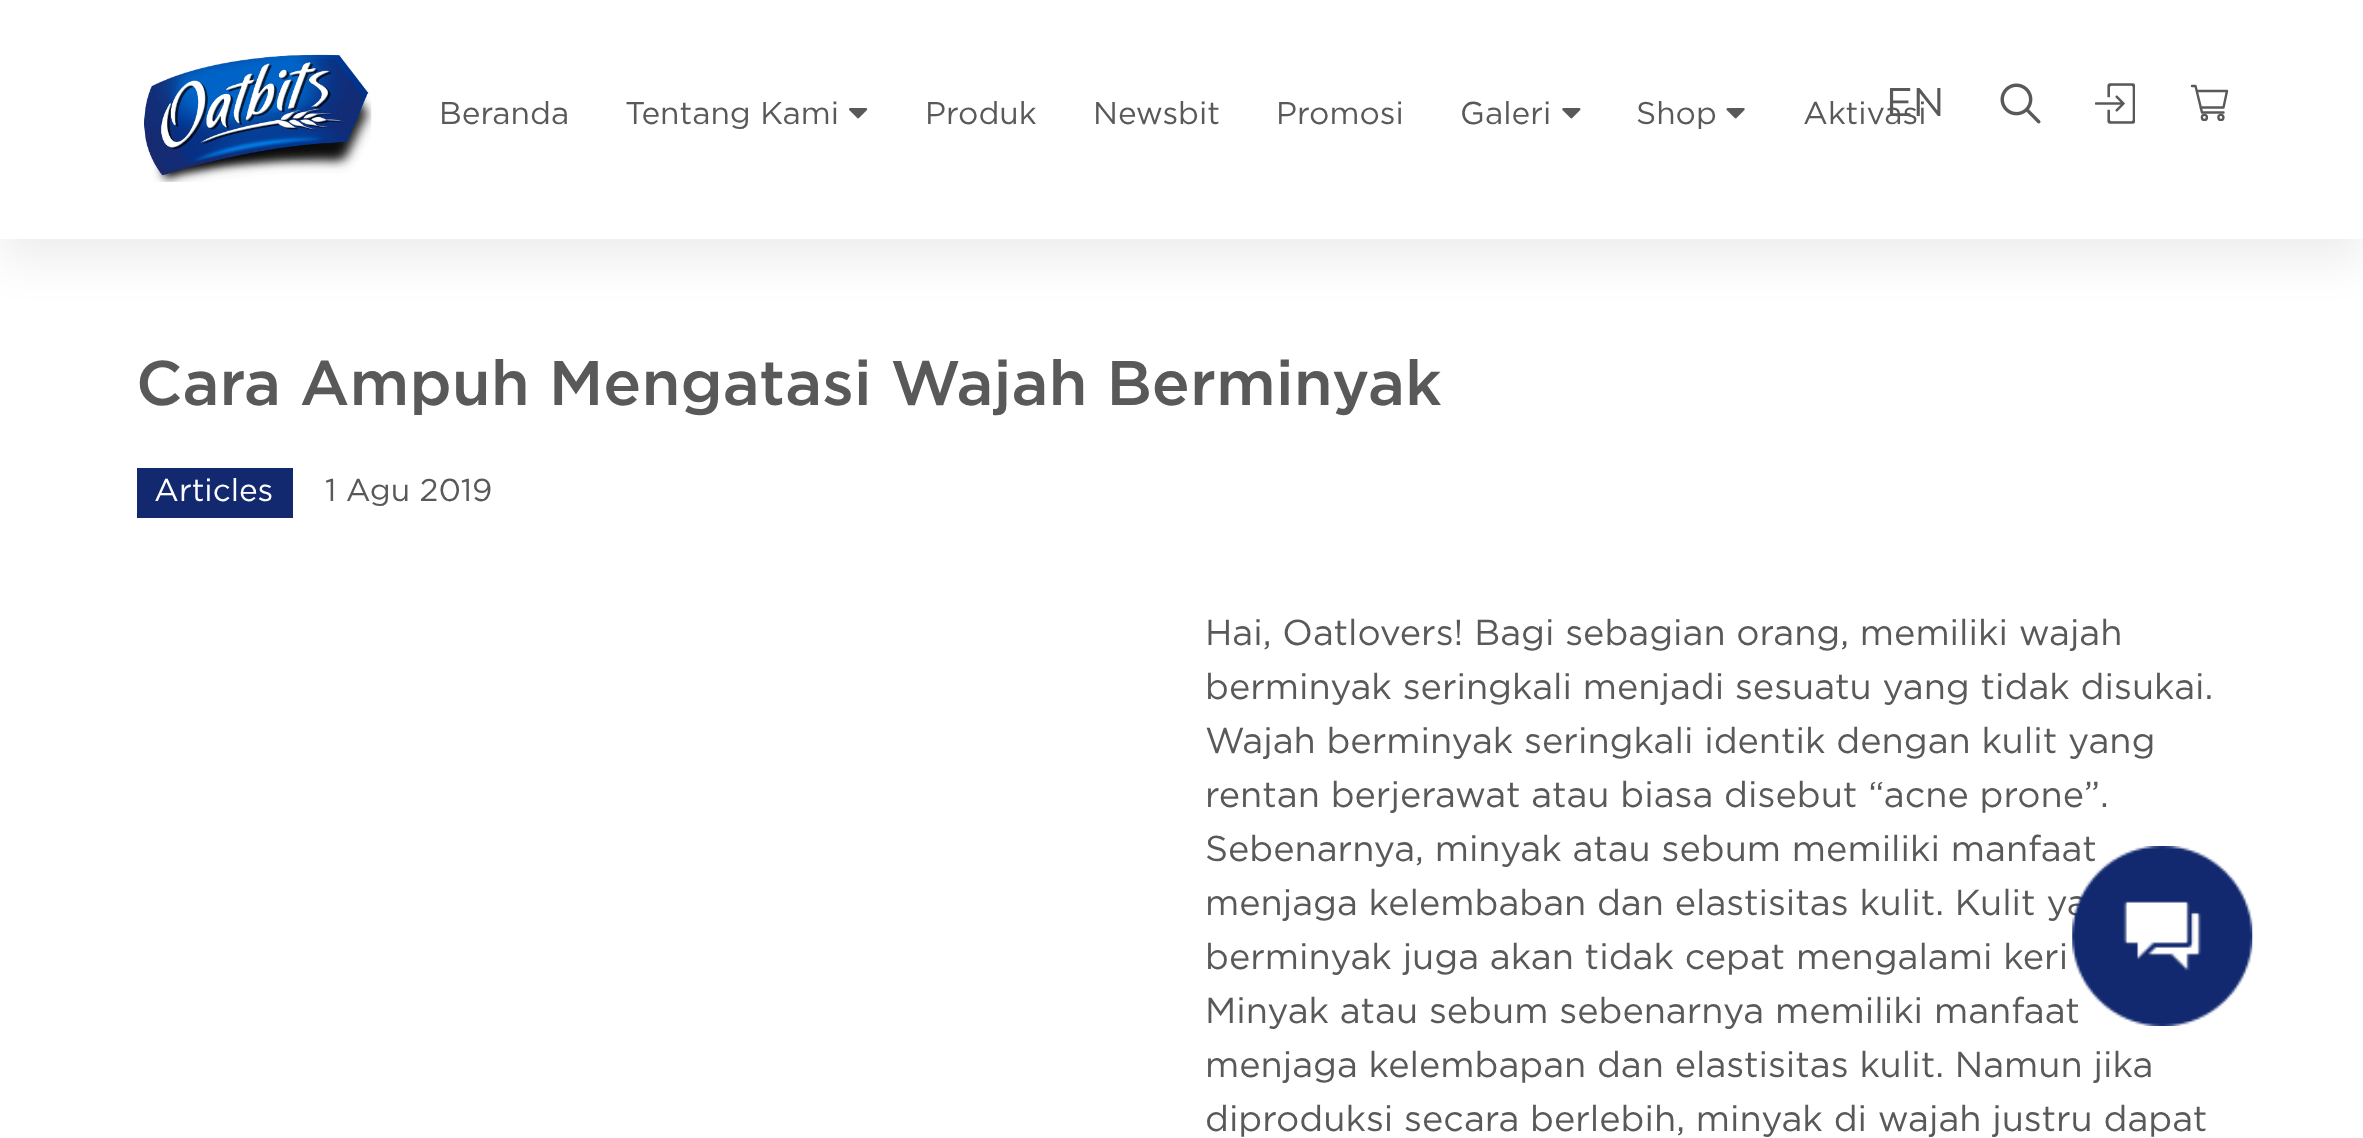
async function draw(canvas) {
  canvas.width = 2363;
  canvas.height = 1138;
  const ctx = canvas.getContext('2d');
  ctx.miterLimit = 4;
  ctx.fontKerning = 'normal';
  function label(s, x, y, font, color) {
    ctx.font = font;
    ctx.fillStyle = color;
    ctx.fillText(s, x, y);
  }
  function rect(x, y, w, h, color) {
    ctx.fillStyle = color;
    ctx.fillRect(x, y, w, h);
  }
  async function image(src, x, y, w, h) {
    const img = new Image();
    img.src = src;
    await img.decode();
    ctx.drawImage(img, x, y, w, h);
  }
  let path;

  rect(0, 0, 2363, 1138, '#fff');
  ctx.fillStyle = '#00000012';
  ctx.filter = 'blur(22.5px)';
  ctx.beginPath();
  ctx.rect(0, 23, 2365, 238);
  ctx.fill();
  ctx.filter = 'none';
  rect(0, 0, 2363, 239, '#fff');
  await image('assets/img1.png', 144, 54, 228, 128);
  label('Aktivasi', 1803, 124, '31.5px Gotham', '#595959');
  label('EN', 1886, 116, '40px Gotham', '#595959');
  await image('assets/img2.png', 2000, 83, 41, 41);
  await image('assets/img3.png', 2095, 83, 40, 41);
  path = new Path2D('M2197 91H2227L2223.5 107.5H2200.5M2223.5 112.5H2202L2195.5 86H2192');
  ctx.strokeStyle = '#595959';
  ctx.lineWidth = 2.4;
  ctx.lineCap = 'round';
  ctx.lineJoin = 'round';
  ctx.stroke(path);
  ctx.beginPath();
  ctx.arc(2220.9, 117.4, 2.5, 0, 2 * Math.PI);
  ctx.stroke();
  ctx.beginPath();
  ctx.arc(2204.4, 117.4, 2.5, 0, 2 * Math.PI);
  ctx.stroke();
  label('Beranda', 439, 124, '31.5px Gotham', '#595959');
  label('Tentang Kami', 625, 124, '31.5px Gotham', '#595959');
  await image('assets/img4.png', 849, 108, 19, 11);
  label('Produk', 925, 124, '31.5px Gotham', '#595959');
  label('Newsbit', 1093, 124, '31.5px Gotham', '#595959');
  label('Promosi', 1276, 124, '31.5px Gotham', '#595959');
  label('Galeri', 1460, 124, '31.5px Gotham', '#595959');
  await image('assets/img5.png', 1562, 108, 19, 11);
  label('Shop', 1636, 124, '31.5px Gotham', '#595959');
  await image('assets/img6.png', 1726, 108, 19, 11);
  label('Cara Ampuh Mengatasi Wajah Berminyak', 136, 405, '500 63px Gotham', '#595959');
  rect(137, 468, 156, 50, '#13296f');
  label('Articles', 154, 501, '31.5px Gotham', '#fff');
  label('1 Agu 2019', 325, 501, '31.5px Gotham', '#595959');
  label('Hai, Oatlovers! Bagi sebagian orang, memiliki wajah', 1205, 645, '36px Gotham', '#595959');
  label('berminyak seringkali menjadi sesuatu yang tidak disukai.', 1205, 699, '36px Gotham', '#595959');
  label('Wajah berminyak seringkali identik dengan kulit yang', 1205, 753, '36px Gotham', '#595959');
  label('rentan berjerawat atau biasa disebut “acne prone”.', 1205, 807, '36px Gotham', '#595959');
  label('Sebenarnya, minyak atau sebum memiliki manfaat', 1205, 861, '36px Gotham', '#595959');
  label('menjaga kelembaban dan elastisitas kulit. Kulit ya', 1205, 915, '36px Gotham', '#595959');
  label('berminyak juga akan tidak cepat mengalami keri', 1205, 969, '36px Gotham', '#595959');
  label('Minyak atau sebum sebenarnya memiliki manfaat', 1205, 1023, '36px Gotham', '#595959');
  label('menjaga kelembapan dan elastisitas kulit. Namun jika', 1205, 1077, '36px Gotham', '#595959');
  label('diproduksi secara berlebih, minyak di wajah justru dapat', 1205, 1131, '36px Gotham', '#595959');
  await image('assets/img7.png', 2072, 846, 181, 180);
}

draw(document.querySelector('canvas'));
